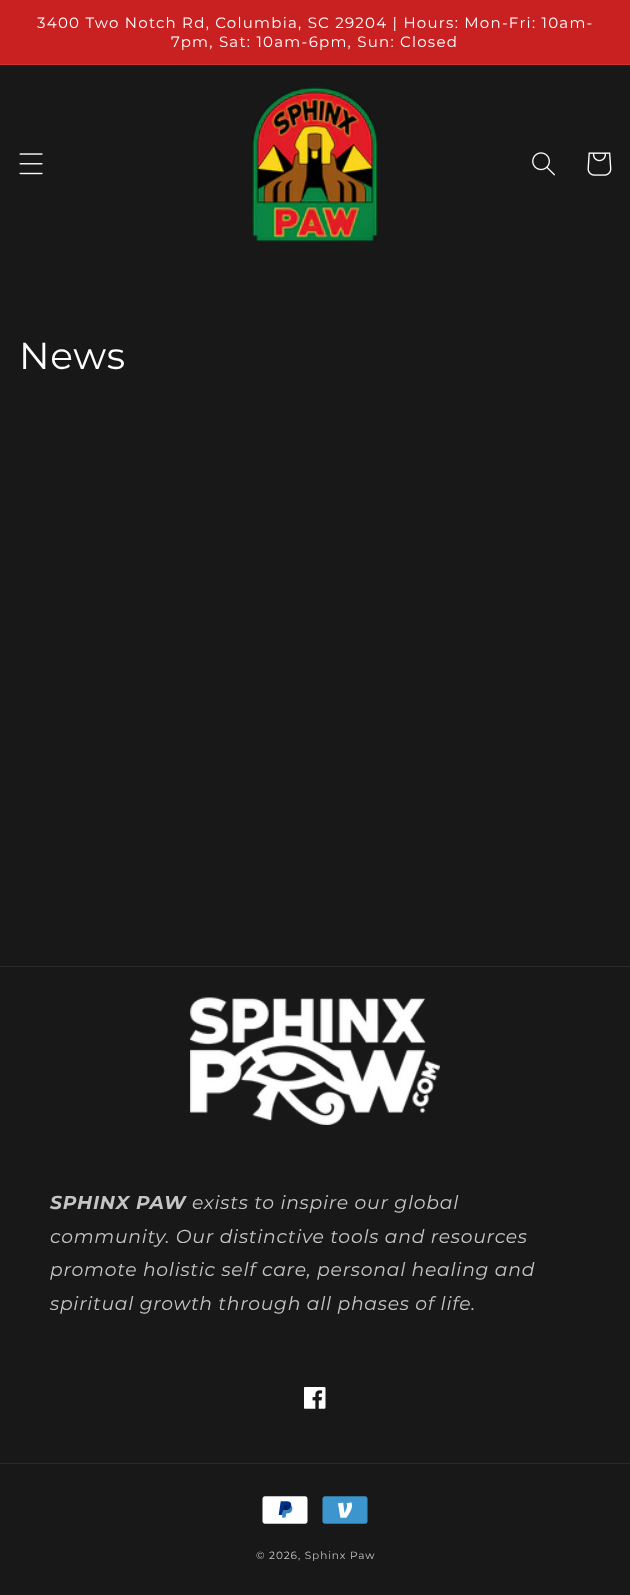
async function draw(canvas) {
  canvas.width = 630;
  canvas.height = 1595;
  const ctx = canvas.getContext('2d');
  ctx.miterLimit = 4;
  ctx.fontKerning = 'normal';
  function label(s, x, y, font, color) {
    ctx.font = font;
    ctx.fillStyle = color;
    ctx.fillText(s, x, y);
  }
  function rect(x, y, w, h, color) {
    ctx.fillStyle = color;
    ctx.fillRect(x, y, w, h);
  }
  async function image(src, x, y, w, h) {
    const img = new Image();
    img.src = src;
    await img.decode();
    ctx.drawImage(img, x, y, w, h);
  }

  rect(0, 0, 630, 1595, '#181818');
  rect(0, 0, 630, 64, '#c92121');
  rect(0, 64, 630, 1, '#cd3333');
  ctx.letterSpacing = '1.25px';
  label('3400 Two Notch Rd, Columbia, SC 29204 | Hours: Mon-Fri: 10am-', 37, 28, '15px Montserrat', '#fff');
  label('7pm, Sat: 10am-6pm, Sun: Closed', 171, 47, '15px Montserrat', '#fff');
  await image('assets/img1.png', 19, 153, 24, 22);
  await image('assets/img2.png', 252, 87, 126, 155);
  await image('assets/img3.png', 532, 152, 23, 24);
  await image('assets/img4.png', 587, 152, 25, 24);
  ctx.letterSpacing = '0.75px';
  label('News', 19, 369, '37.5px Montserrat', '#fff');
  rect(0, 966, 630, 1, '#2a2a2a');
  await image('assets/img5.png', 190, 997, 250, 128);
  label('SPHINX PAW', 50, 1209, 'italic bold 18.75px Montserrat', '#c5c5c5');
  label('exists to inspire our global', 192, 1209, 'italic 18.75px Montserrat', '#c5c5c5');
  label('community. Our distinctive tools and resources', 50, 1243, 'italic 18.75px Montserrat', '#c5c5c5');
  label('promote holistic self care, personal healing and', 50, 1276, 'italic 18.75px Montserrat', '#c5c5c5');
  label('spiritual growth through all phases of life.', 50, 1310, 'italic 18.75px Montserrat', '#c5c5c5');
  await image('assets/img6.png', 304, 1387, 22, 22);
  rect(0, 1463, 630, 1, '#2a2a2a');
  await image('assets/img7.png', 262, 1496, 46, 28);
  await image('assets/img8.png', 322, 1496, 46, 28);
  ctx.letterSpacing = '0.9px';
  label('© 2026, Sphinx Paw', 256, 1559, '10.5px Montserrat', '#c5c5c5');
}

draw(document.querySelector('canvas'));
